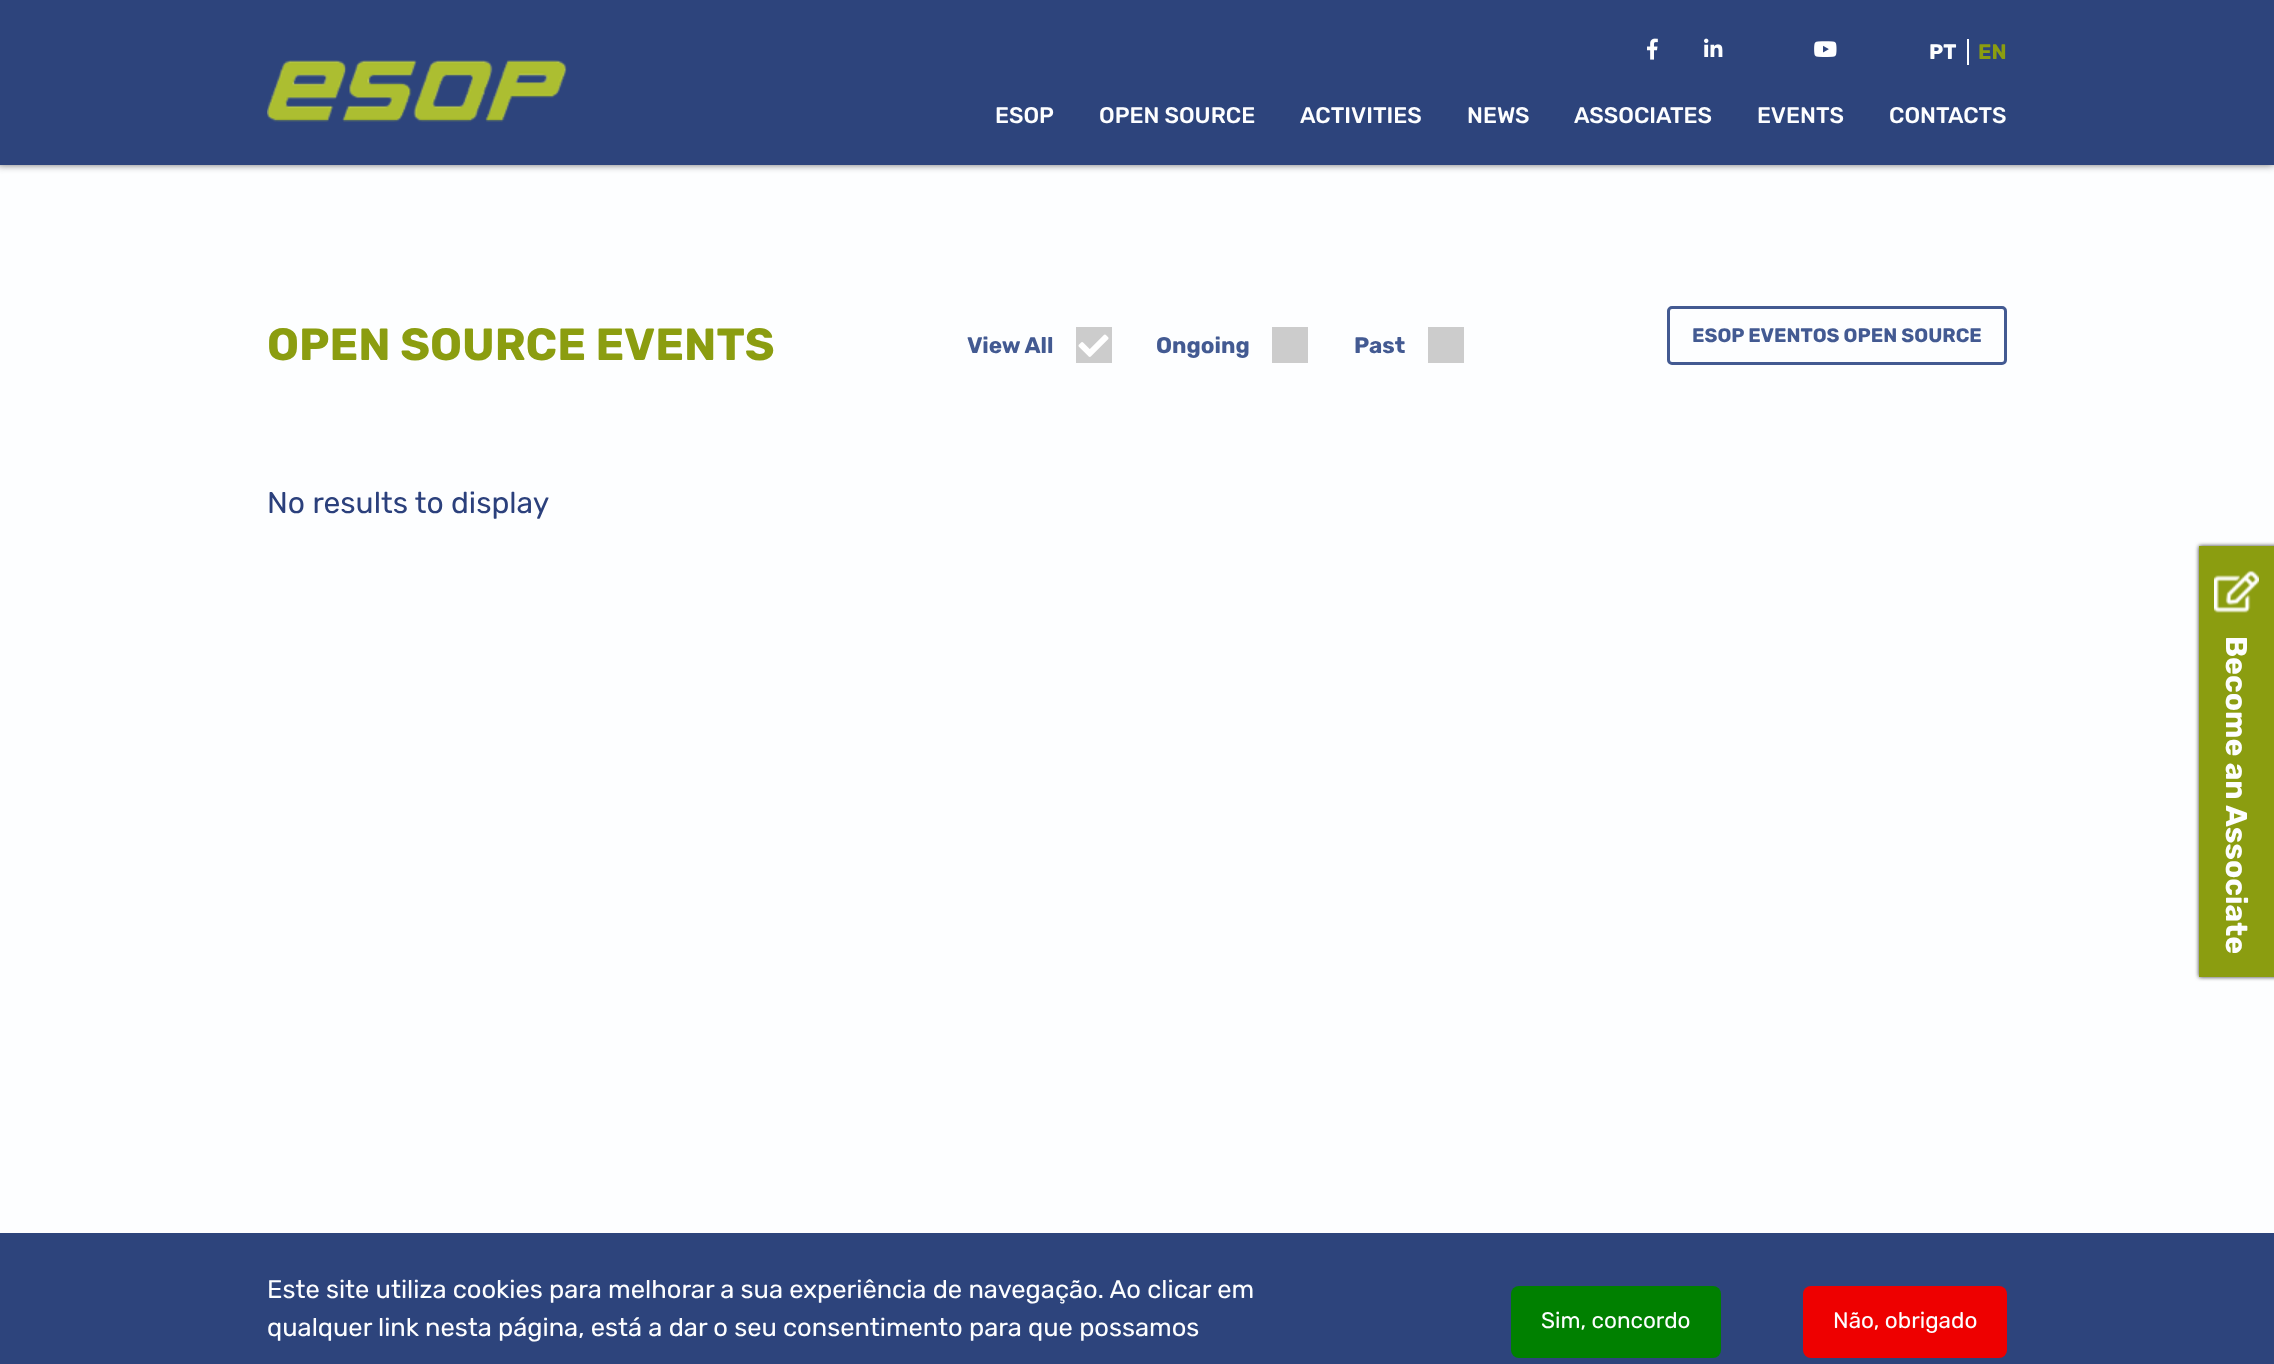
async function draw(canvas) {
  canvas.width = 2274;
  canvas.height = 1364;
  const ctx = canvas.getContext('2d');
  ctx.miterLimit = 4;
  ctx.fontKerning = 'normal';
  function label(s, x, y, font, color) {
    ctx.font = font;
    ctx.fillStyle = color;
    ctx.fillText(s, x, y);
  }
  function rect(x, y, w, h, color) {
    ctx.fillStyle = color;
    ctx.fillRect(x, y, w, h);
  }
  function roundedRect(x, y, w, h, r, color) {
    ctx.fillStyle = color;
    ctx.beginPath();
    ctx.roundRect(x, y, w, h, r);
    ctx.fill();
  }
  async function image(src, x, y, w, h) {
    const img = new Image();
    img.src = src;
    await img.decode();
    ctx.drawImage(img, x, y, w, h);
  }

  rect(0, 0, 2274, 1364, '#fdfeff');
  ctx.fillStyle = '#4d4f4f';
  ctx.filter = 'blur(4px)';
  ctx.beginPath();
  ctx.rect(-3, -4, 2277, 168);
  ctx.fill();
  ctx.filter = 'none';
  rect(0, 0, 2274, 165, '#2d447c');
  await image('assets/img1.png', 267, 60, 300, 62);
  await image('assets/img2.png', 1647, 38, 11, 22);
  await image('assets/img3.png', 1704, 38, 19, 19);
  await image('assets/img4.png', 1814, 41, 23, 16);
  label('PT', 1929, 59, 'bold 21px Rubik', '#fdfeff');
  label('EN', 1978, 59, 'bold 21px Rubik', '#8b9d10');
  rect(1967, 39, 2, 26, '#fdfeff');
  label('ESOP', 995, 123, '500 22.5px Rubik', '#fdfeff');
  label('OPEN SOURCE', 1099, 123, '500 22.5px Rubik', '#fdfeff');
  label('ACTIVITIES', 1300, 123, '500 22.5px Rubik', '#fdfeff');
  label('NEWS', 1467, 123, '500 22.5px Rubik', '#fdfeff');
  label('ASSOCIATES', 1574, 123, '500 22.5px Rubik', '#fdfeff');
  label('EVENTS', 1757, 123, '500 22.5px Rubik', '#fdfeff');
  label('CONTACTS', 1889, 123, '500 22.5px Rubik', '#fdfeff');
  label('OPEN SOURCE EVENTS', 267, 360, 'bold 45px Rubik', '#8b9d10');
  label('View All', 967, 353, 'bold 22.5px Rubik', '#435a92');
  rect(1076, 327, 36, 36, '#ccc');
  await image('assets/img5.png', 1078, 334, 31, 23);
  label('Ongoing', 1156, 353, 'bold 22.5px Rubik', '#435a92');
  rect(1272, 327, 36, 36, '#ccc');
  label('Past', 1354, 353, 'bold 22.5px Rubik', '#435a92');
  rect(1428, 327, 36, 36, '#ccc');
  ctx.beginPath();
  ctx.roundRect(1668.5, 307.5, 337, 56, 3.5);
  ctx.strokeStyle = '#435a92';
  ctx.lineWidth = 3;
  ctx.stroke();
  label('ESOP EVENTOS OPEN SOURCE', 1692, 342, 'bold 19.5px Rubik', '#435a92');
  label('No results to display', 267, 513, '30px Rubik', '#2b407c');
  ctx.fillStyle = '#333';
  ctx.filter = 'blur(2px)';
  ctx.beginPath();
  ctx.rect(2199, 546, 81, 431);
  ctx.fill();
  ctx.filter = 'none';
  rect(2199, 546, 75, 431, '#8b9d10');
  await image('assets/img6.png', 2214, 570, 45, 43);
  ctx.font = 'bold 30px Rubik';
  ctx.fillStyle = '#fdfeff';
  ctx.save();
  ctx.translate(2226, 636);
  ctx.rotate(90 * Math.PI / 180);
  ctx.fillText('Become an Associate', 0, 0);
  ctx.restore();
  rect(0, 1233, 2274, 131, '#2d447c');
  label('Este site utiliza cookies para melhorar a sua experiência de navegação. Ao clicar em', 267, 1298, '25.5px Rubik', '#fdfeff');
  label('qualquer link nesta página, está a dar o seu consentimento para que possamos', 267, 1336, '25.5px Rubik', '#fdfeff');
  roundedRect(1511, 1286, 210, 72, 8, '#008000');
  label('Sim, concordo', 1541, 1328, '22.5px Rubik', '#fdfeff');
  roundedRect(1803, 1286, 204, 72, 8, '#e00');
  label('Não, obrigado', 1833, 1328, '22.5px Rubik', '#fdfeff');
}

draw(document.querySelector('canvas'));
